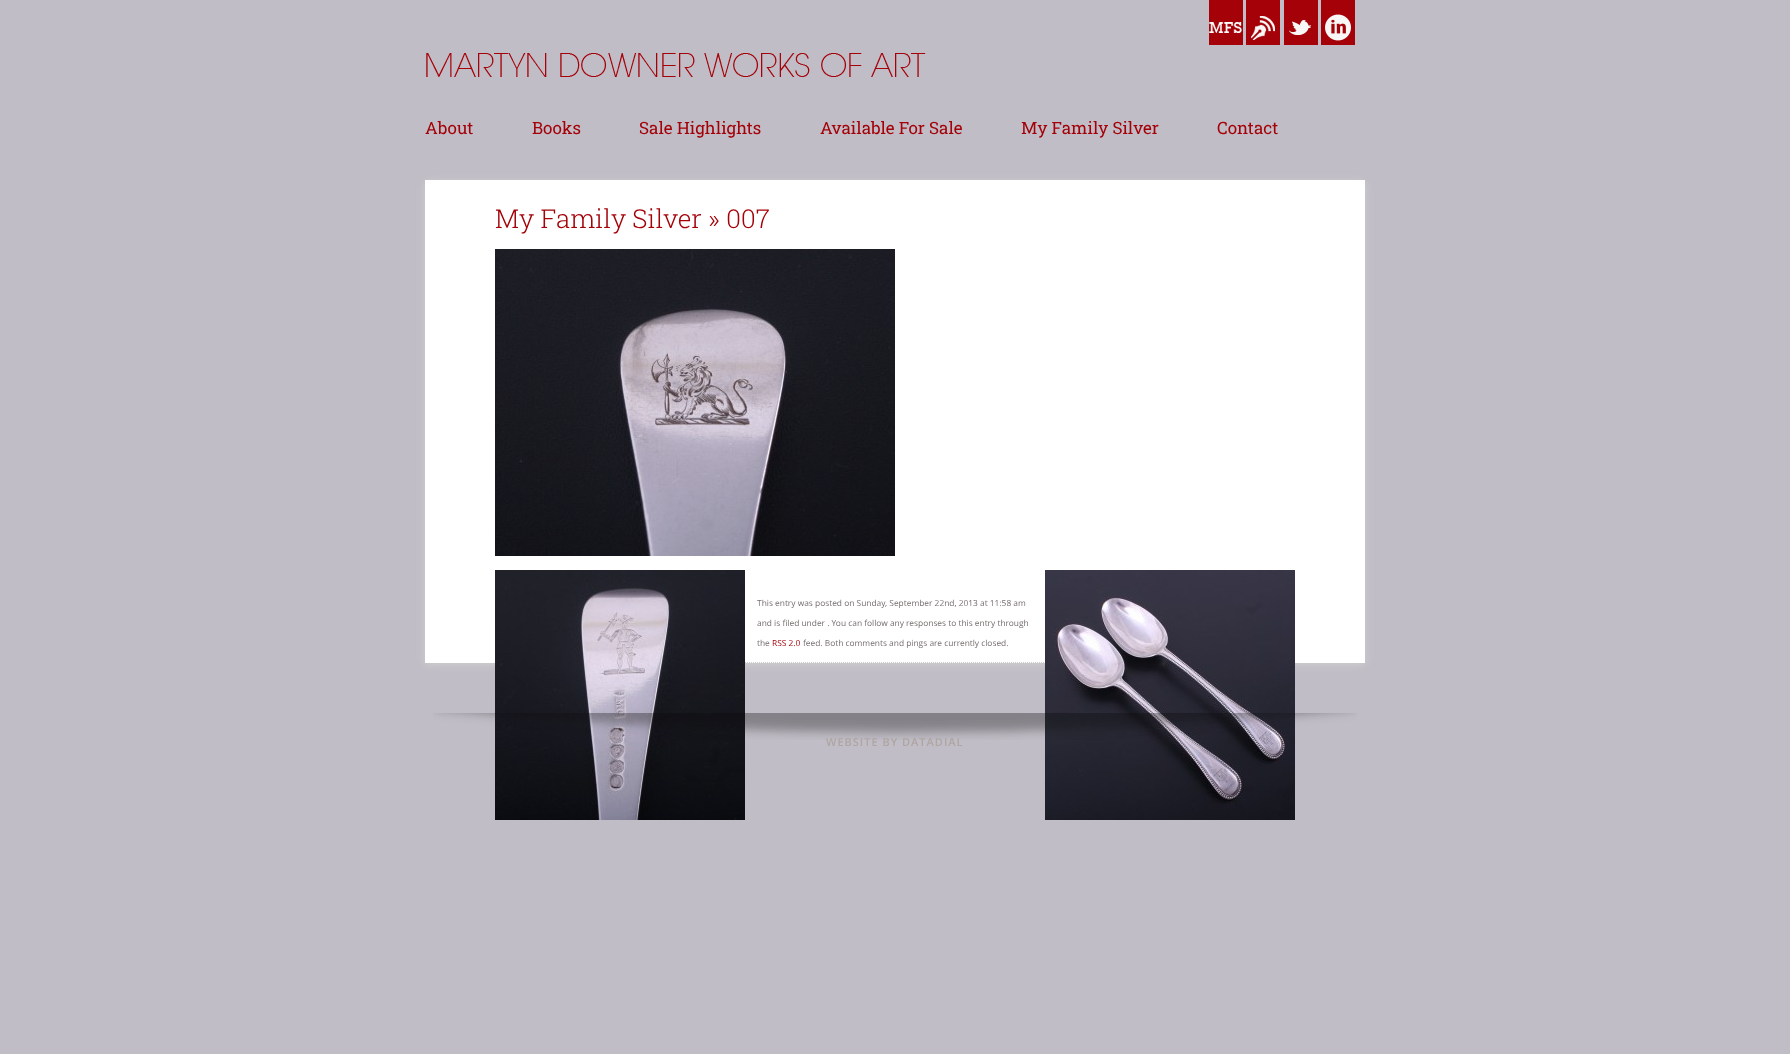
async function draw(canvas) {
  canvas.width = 1790;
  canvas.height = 1054;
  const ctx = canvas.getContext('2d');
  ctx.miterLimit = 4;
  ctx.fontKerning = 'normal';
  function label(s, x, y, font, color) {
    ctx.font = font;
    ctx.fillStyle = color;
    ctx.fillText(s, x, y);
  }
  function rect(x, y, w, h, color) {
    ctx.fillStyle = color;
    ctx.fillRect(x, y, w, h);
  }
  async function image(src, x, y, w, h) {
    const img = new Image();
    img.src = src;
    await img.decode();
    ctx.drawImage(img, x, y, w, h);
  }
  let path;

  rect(0, 0, 1790, 1054, '#c1bdc6');
  rect(1209, 0, 34, 45, '#a40108');
  await image('assets/img1.png', 1209, 22, 33, 11);
  rect(1246, 0, 34, 45, '#a40108');
  await image('assets/img2.png', 1251, 16, 24, 24);
  rect(1284, 0, 34, 45, '#a40108');
  await image('assets/img3.png', 1289, 20, 22, 15);
  rect(1321, 0, 34, 45, '#a40108');
  await image('assets/img4.png', 1325, 14, 26, 27);
  await image('assets/img5.png', 426, 53, 500, 24);
  label('About', 425, 134, '17px Roboto Slab', '#a40108');
  label('Books', 532, 134, '17px Roboto Slab', '#a40108');
  label('Sale Highlights', 639, 134, '17px Roboto Slab', '#a40108');
  label('Available For Sale', 820, 134, '17px Roboto Slab', '#a40108');
  label('My Family Silver', 1021, 134, '17px Roboto Slab', '#a40108');
  label('Contact', 1217, 134, '17px Roboto Slab', '#a40108');
  ctx.fillStyle = '#cecece';
  ctx.filter = 'blur(4px)';
  ctx.beginPath();
  ctx.rect(425, 182, 940, 483);
  ctx.fill();
  ctx.filter = 'none';
  rect(425, 180, 940, 483, '#fff');
  path = new Path2D('M495 662.5H1295');
  ctx.strokeStyle = '#ccc';
  ctx.setLineDash([1, 1]);
  ctx.stroke(path);
  label('My Family Silver » 007', 495, 228, '300 26px Roboto Slab', '#a40108');
  await image('assets/img6.png', 495, 249, 400, 307);
  await image('assets/img7.png', 495, 570, 250, 250);
  await image('assets/img8.png', 1045, 570, 250, 250);
  label('This entry was posted on Sunday, September 22nd, 2013 at 11:58 am', 757, 606, '8.4px Open Sans', '#766f6d');
  label('and is filed under . You can follow any responses to this entry through', 757, 626, '8.4px Open Sans', '#766f6d');
  label('the', 757, 646, '8.4px Open Sans', '#766f6d');
  label('RSS 2.0', 772, 646, '8.4px Open Sans', '#a40108');
  label('feed. Both comments and pings are currently closed.', 803, 646, '8.4px Open Sans', '#766f6d');
  await image('assets/img9.png', 433, 713, 924, 27);
  ctx.letterSpacing = '1px';
  label('WEBSITE BY DATADIAL', 826, 746, '600 11px Open Sans', '#afa5a2');
}

draw(document.querySelector('canvas'));
